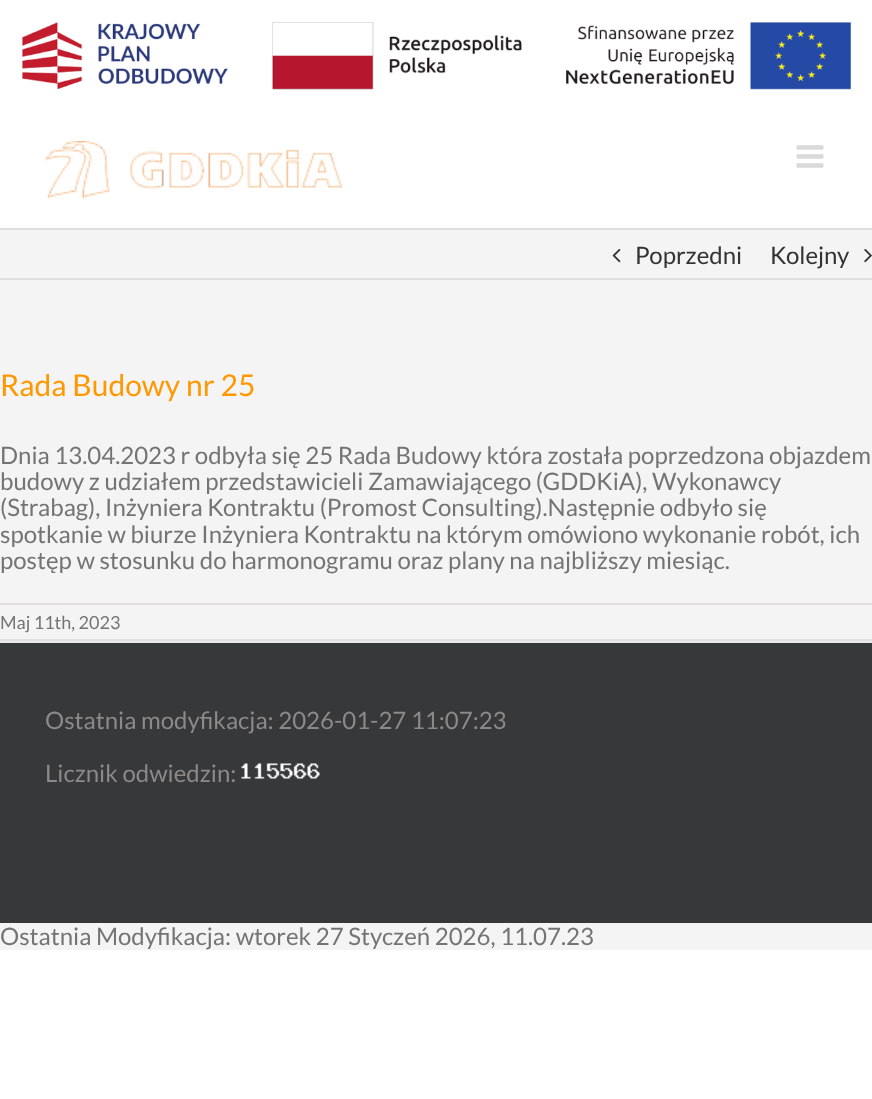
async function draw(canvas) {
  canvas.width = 872;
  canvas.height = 1099;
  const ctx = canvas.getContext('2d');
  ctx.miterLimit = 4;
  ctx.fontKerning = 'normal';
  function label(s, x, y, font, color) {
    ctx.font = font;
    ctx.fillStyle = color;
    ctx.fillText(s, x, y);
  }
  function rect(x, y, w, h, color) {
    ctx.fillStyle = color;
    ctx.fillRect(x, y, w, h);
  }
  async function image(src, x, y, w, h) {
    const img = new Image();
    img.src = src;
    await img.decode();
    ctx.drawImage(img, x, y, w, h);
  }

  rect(0, 0, 872, 1099, '#fff');
  await image('assets/img1.png', 22, 22, 830, 68);
  rect(0, 230, 872, 720, '#f4f4f4');
  await image('assets/img2.png', 45, 141, 297, 58);
  await image('assets/img3.png', 796, 145, 28, 23);
  rect(0, 228, 872, 2, '#e0dede');
  rect(0, 278, 872, 2, '#e0dede');
  await image('assets/img4.png', 612, 248, 9, 15);
  label('Poprzedni', 635, 264, '24px Lato', '#333');
  label('Kolejny', 770, 264, '24px Lato', '#333');
  await image('assets/img5.png', 864, 248, 8, 15);
  label('Rada Budowy nr 25', 0, 396, '30px Lato', '#ff9800');
  label('Dnia 13.04.2023 r odbyła się 25 Rada Budowy która została poprzedzona objazdem', 0, 464, '24px Lato', '#747474');
  label('budowy z udziałem przedstawicieli Zamawiającego (GDDKiA), Wykonawcy', 0, 490, '24px Lato', '#747474');
  label('(Strabag), Inżyniera Kontraktu (Promost Consulting).Następnie odbyło się', 0, 516, '24px Lato', '#747474');
  label('spotkanie w biurze Inżyniera Kontraktu na którym omówiono wykonanie robót, ich', 0, 543, '24px Lato', '#747474');
  label('postęp w stosunku do harmonogramu oraz plany na najbliższy miesiąc.', 0, 569, '24px Lato', '#747474');
  rect(0, 603, 872, 2, '#e0dede');
  rect(0, 639, 872, 2, '#e0dede');
  label('Maj 11th, 2023', 0, 629, '18px Lato', '#747474');
  rect(0, 643, 872, 280, '#363839');
  rect(0, 641, 872, 2, '#e9eaee');
  label('Ostatnia modyfikacja: 2026-01-27 11:07:23', 45, 729, '24px Lato', '#8c8989');
  label('Licznik odwiedzin:', 45, 782, '24px Lato', '#8c8989');
  await image('assets/img6.png', 241, 763, 79, 16);
  label('Ostatnia Modyfikacja: wtorek 27 Styczeń 2026, 11.07.23', 0, 945, '24px Lato', '#747474');
}

draw(document.querySelector('canvas'));
